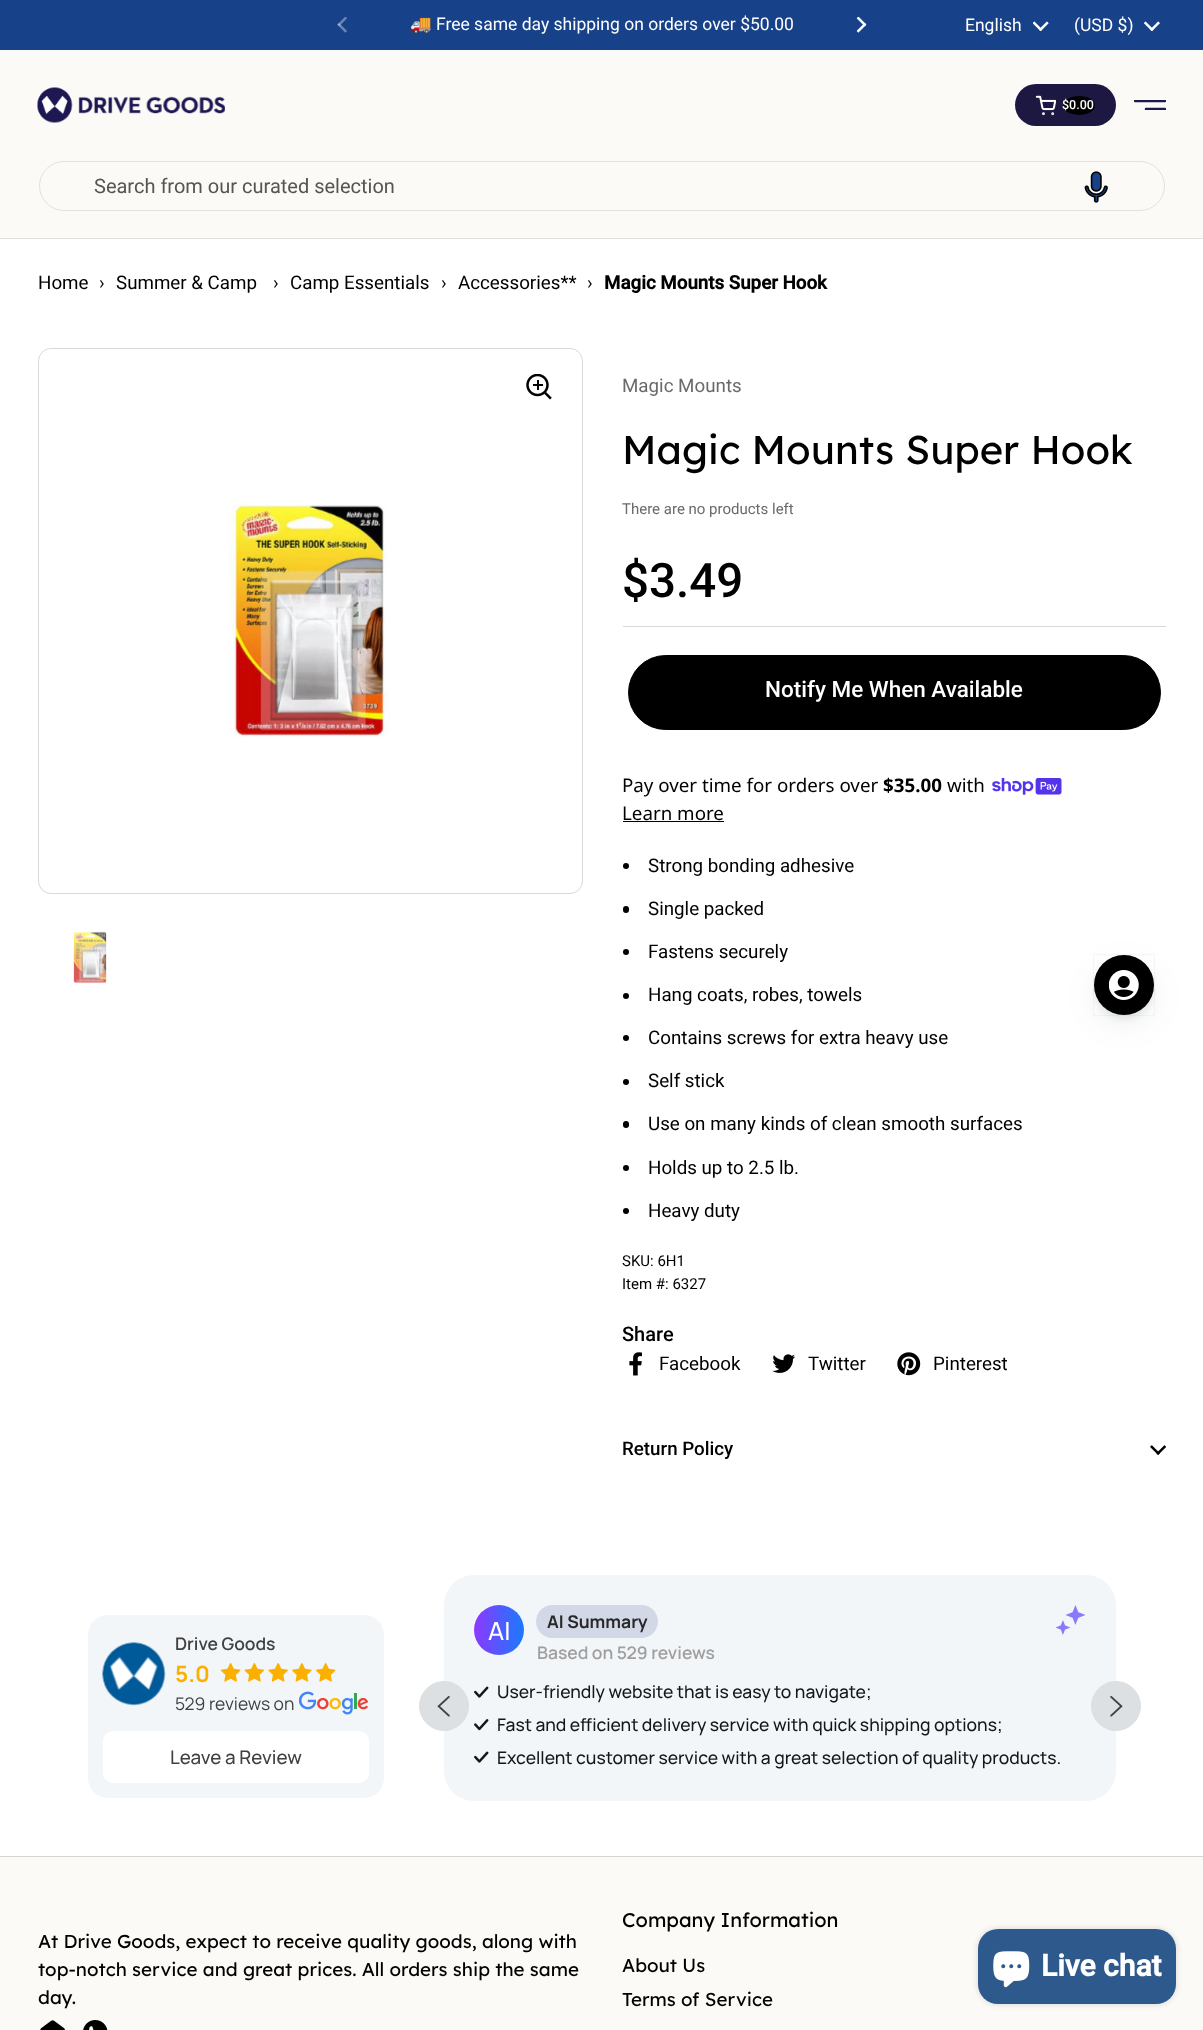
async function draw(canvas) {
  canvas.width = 1203;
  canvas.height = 2030;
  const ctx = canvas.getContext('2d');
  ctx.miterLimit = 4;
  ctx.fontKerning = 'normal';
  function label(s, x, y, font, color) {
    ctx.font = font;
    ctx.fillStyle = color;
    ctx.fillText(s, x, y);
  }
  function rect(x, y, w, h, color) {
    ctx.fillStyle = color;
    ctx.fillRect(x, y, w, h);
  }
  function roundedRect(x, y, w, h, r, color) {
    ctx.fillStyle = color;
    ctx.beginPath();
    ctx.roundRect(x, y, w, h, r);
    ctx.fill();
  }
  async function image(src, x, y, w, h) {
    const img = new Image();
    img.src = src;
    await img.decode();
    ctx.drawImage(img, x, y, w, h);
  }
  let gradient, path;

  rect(0, 0, 1203, 2030, '#fff');
  rect(0, 0, 1203, 50, '#174188');
  await image('assets/img1.png', 337, 17, 10, 16);
  label('🚚', 410, 30, '17.5px Noto Color Emoji', '#fff');
  label('Free same day shipping on orders over $50.00', 436, 30, '17.5px Roboto', '#fff');
  await image('assets/img2.png', 856, 16, 11, 17);
  label('English', 965, 31, '17.5px Roboto', '#fff');
  await image('assets/img3.png', 1033, 21, 16, 10);
  label('(USD $)', 1074, 31, '17.5px Roboto', '#fff');
  await image('assets/img4.png', 1144, 21, 16, 10);
  rect(0, 50, 1203, 188, '#fbfaf6');
  await image('assets/img5.png', 37, 87, 188, 36);
  roundedRect(1015, 84, 101, 42, 21, '#1c1841');
  await image('assets/img6.png', 1035, 95, 21, 21);
  ctx.fillStyle = '#000';
  ctx.beginPath();
  ctx.ellipse(1079, 105.5, 16, 9.5, 0, 0, 2 * Math.PI);
  ctx.fill();
  label('$0.00', 1062, 109, '500 12.5px Roboto', '#fff');
  ctx.save();
  ctx.beginPath();
  ctx.rect(1134, 100, 32, 10);
  ctx.clip();
  path = new Path2D('M1135 101H1165M1146 109H1165');
  ctx.strokeStyle = '#1d1752';
  ctx.lineWidth = 2.5;
  ctx.lineCap = 'round';
  ctx.stroke(path);
  ctx.restore();
  rect(0, 238, 1203, 1, '#e2e1dd');
  ctx.beginPath();
  ctx.roundRect(39.5, 161.5, 1125, 49, 24.5);
  ctx.strokeStyle = '#e2e1dd';
  ctx.stroke();
  label('Search from our curated selection', 94, 193, '20px Roboto', '#555554');
  await image('assets/img7.png', 1084, 171, 24, 32);
  label('Home', 38, 289, '18.75px Roboto', '#000');
  label('›', 99, 289, '18.75px Roboto', '#000');
  label('Summer & Camp', 116, 289, '18.75px Roboto', '#000');
  label('›', 273, 289, '18.75px Roboto', '#000');
  label('Camp Essentials', 290, 289, '18.75px Roboto', '#000');
  label('›', 441, 289, '18.75px Roboto', '#000');
  label('Accessories**', 458, 289, '18.75px Roboto', '#000');
  label('›', 587, 289, '18.75px Roboto', '#000');
  label('Magic Mounts Super Hook', 604, 289, 'bold 18.75px Roboto', '#000');
  ctx.beginPath();
  ctx.roundRect(38.5, 348.5, 544, 545, 12.5);
  ctx.strokeStyle = '#d9d9d9';
  ctx.stroke();
  await image('assets/img8.png', 526, 374, 26, 26);
  await image('assets/img9.png', 229, 502, 161, 236);
  await image('assets/img10.png', 72, 931, 35, 53);
  label('Magic Mounts', 622, 392, '18.75px Roboto', '#6a6a6a');
  label('Magic Mounts Super Hook', 622, 464, '500 40px Readex Pro', '#000');
  label('There are no products left', 622, 514, '15px Roboto', '#6a6a6a');
  label('$3.49', 622, 597, '500 47.5px Roboto', '#000');
  rect(623, 626, 543, 1, '#d9d9d9');
  ctx.fillStyle = '#000';
  ctx.beginPath();
  ctx.roundRect(628.5, 655.5, 532, 74, 37);
  ctx.fill();
  ctx.strokeStyle = '#000';
  ctx.stroke();
  label('Notify Me When Available', 765, 697, '500 22.5px Roboto', '#fff');
  label('Pay over time for orders over', 622, 792, '18.75px Noto Sans', '#000');
  label('$35.00', 883, 792, 'bold 18.75px Noto Sans', '#000');
  label('with', 947, 792, '18.75px Noto Sans', '#000');
  await image('assets/img11.png', 992, 778, 70, 17);
  label('Learn more', 622, 820, '18.75px Noto Sans', '#000');
  rect(623, 821, 101, 1, '#000');
  ctx.beginPath();
  ctx.arc(626, 866, 3, 0, 2 * Math.PI);
  ctx.fill();
  label('Strong bonding adhesive', 648, 872, '18.75px Roboto', '#000');
  roundedRect(623, 906, 6, 7, 3, '#000');
  label('Single packed', 648, 915, '18.75px Roboto', '#000');
  ctx.beginPath();
  ctx.arc(626, 952, 3, 0, 2 * Math.PI);
  ctx.fill();
  label('Fastens securely', 648, 958, '18.75px Roboto', '#000');
  ctx.beginPath();
  ctx.arc(626, 996, 3, 0, 2 * Math.PI);
  ctx.fill();
  label('Hang coats, robes, towels', 648, 1001, '18.75px Roboto', '#000');
  ctx.beginPath();
  ctx.arc(626, 1038, 3, 0, 2 * Math.PI);
  ctx.fill();
  label('Contains screws for extra heavy use', 648, 1044, '18.75px Roboto', '#000');
  ctx.beginPath();
  ctx.arc(626, 1082, 3, 0, 2 * Math.PI);
  ctx.fill();
  label('Self stick', 648, 1087, '18.75px Roboto', '#000');
  roundedRect(623, 1121, 6, 7, 3, '#000');
  label('Use on many kinds of clean smooth surfaces', 648, 1130, '18.75px Roboto', '#000');
  ctx.beginPath();
  ctx.arc(626, 1168, 3, 0, 2 * Math.PI);
  ctx.fill();
  label('Holds up to 2.5 lb.', 648, 1174, '18.75px Roboto', '#000');
  ctx.beginPath();
  ctx.arc(626, 1211, 3, 0, 2 * Math.PI);
  ctx.fill();
  label('Heavy duty', 648, 1217, '18.75px Roboto', '#000');
  label('SKU: 6H1', 622, 1266, '15px Roboto', '#000');
  label('Item #: 6327', 622, 1289, '15px Roboto', '#000');
  label('Share', 622, 1341, '500 20px Roboto', '#000');
  await image('assets/img12.png', 629, 1352, 13, 24);
  label('Facebook', 659, 1370, '18.75px Roboto', '#000');
  await image('assets/img13.png', 772, 1354, 23, 19);
  label('Twitter', 808, 1370, '18.75px Roboto', '#000');
  await image('assets/img14.png', 897, 1352, 24, 24);
  label('Pinterest', 933, 1370, '18.75px Roboto', '#000');
  label('Return Policy', 622, 1455, '500 18.75px Roboto', '#000');
  await image('assets/img15.png', 1150, 1445, 16, 10);
  roundedRect(88, 1615, 296, 183, 20, '#f3f6f9');
  await image('assets/img16.png', 102, 1642, 64, 64);
  label('Drive Goods', 175, 1650, '600 17.5px Manrope', '#404040');
  label('5.0', 175, 1682, 'bold 22.5px Manrope', '#fbb000');
  await image('assets/img17.png', 220, 1663, 21, 19);
  await image('assets/img18.png', 244, 1663, 21, 19);
  await image('assets/img19.png', 268, 1663, 20, 19);
  await image('assets/img20.png', 292, 1663, 20, 19);
  await image('assets/img17.png', 315, 1663, 21, 19);
  label('529 reviews on', 175, 1710, '17.5px Manrope', '#404040');
  await image('assets/img21.png', 299, 1691, 70, 24);
  roundedRect(103, 1731, 266, 52, 10, '#fff');
  label('Leave a Review', 170, 1764, '500 18.75px Manrope', '#404040');
  roundedRect(444, 1575, 672, 226, 30, '#f3f6f9');
  ctx.fillStyle = '#dce0e2';
  ctx.beginPath();
  ctx.arc(444, 1706, 24.5, 0, 2 * Math.PI);
  ctx.fill();
  ctx.strokeStyle = '#dce0e2';
  ctx.stroke();
  await image('assets/img22.png', 437, 1696, 13, 21);
  gradient = ctx.createLinearGradient(474, 1630, 524, 1630);
  gradient.addColorStop(0, '#8d38ff');
  gradient.addColorStop(1, '#197bff');
  ctx.fillStyle = gradient;
  ctx.beginPath();
  ctx.arc(499, 1630, 25, 0, 2 * Math.PI);
  ctx.fill();
  label('AI', 488, 1640, '500 25px Manrope', '#fff');
  roundedRect(536, 1605, 122, 33, 16.5, '#d3d8e7');
  label('AI Summary', 547, 1628, 'bold 17.5px Manrope', '#282828');
  label('Based on 529 reviews', 537, 1659, '600 17.5px Manrope', '#9f9f9f');
  await image('assets/img23.png', 1056, 1605, 30, 30);
  await image('assets/img24.png', 474, 1686, 15, 12);
  label('User-friendly website that is easy to navigate;', 497, 1698, '500 17.5px Manrope', '#161616');
  await image('assets/img25.png', 474, 1719, 15, 12);
  label('Fast and efficient delivery service with quick shipping options;', 497, 1731, '500 17.5px Manrope', '#161616');
  await image('assets/img24.png', 474, 1751, 15, 12);
  label('Excellent customer service with a great selection of quality products.', 497, 1764, '500 17.5px Manrope', '#161616');
  ctx.fillStyle = '#dce0e2';
  ctx.beginPath();
  ctx.arc(1116, 1706, 24.5, 0, 2 * Math.PI);
  ctx.fill();
  ctx.stroke();
  await image('assets/img26.png', 1110, 1696, 13, 21);
  ctx.fillStyle = '#373f4714';
  ctx.filter = 'blur(15px)';
  ctx.beginPath();
  ctx.roundRect(1094, 965, 60, 60, 30);
  ctx.fill();
  ctx.filter = 'none';
  ctx.filter = 'blur(2.5px)';
  ctx.beginPath();
  ctx.roundRect(1094, 960, 60, 60, 30);
  ctx.fill();
  ctx.filter = 'none';
  ctx.strokeStyle = '#373f470a';
  ctx.strokeRect(1093.5, 954.5, 61, 61);
  ctx.fillStyle = '#000';
  ctx.beginPath();
  ctx.arc(1124, 985, 30, 0, 2 * Math.PI);
  ctx.fill();
  await image('assets/img27.png', 1109, 970, 30, 30);
  rect(0, 1857, 1203, 173, '#fbfaf6');
  rect(0, 1856, 1203, 1, '#d5d5d1');
  label('At Drive Goods, expect to receive quality goods, along with', 38, 1948, '500 18.75px Readex Pro', '#000');
  label('top-notch service and great prices. All orders ship the same', 38, 1976, '500 18.75px Readex Pro', '#000');
  label('day.', 38, 2004, '500 18.75px Readex Pro', '#000');
  await image('assets/img28.png', 40, 2020, 25, 10);
  await image('assets/img29.png', 83, 2020, 25, 10);
  label('Company Information', 622, 1927, '500 20px Readex Pro', '#000');
  label('About Us', 622, 1972, '500 18.75px Readex Pro', '#000');
  label('Terms of Service', 622, 2006, '500 18.75px Readex Pro', '#000');
  ctx.fillStyle = '#00000026';
  ctx.filter = 'blur(3px)';
  ctx.beginPath();
  ctx.roundRect(978, 1929, 198, 75, 20);
  ctx.fill();
  ctx.filter = 'none';
  roundedRect(978, 1929, 198, 75, 20, '#2e598c');
  await image('assets/img30.png', 993, 1951, 37, 37);
  label('Live chat', 1041, 1976, 'bold 30px Roboto', '#fff');
}

draw(document.querySelector('canvas'));
